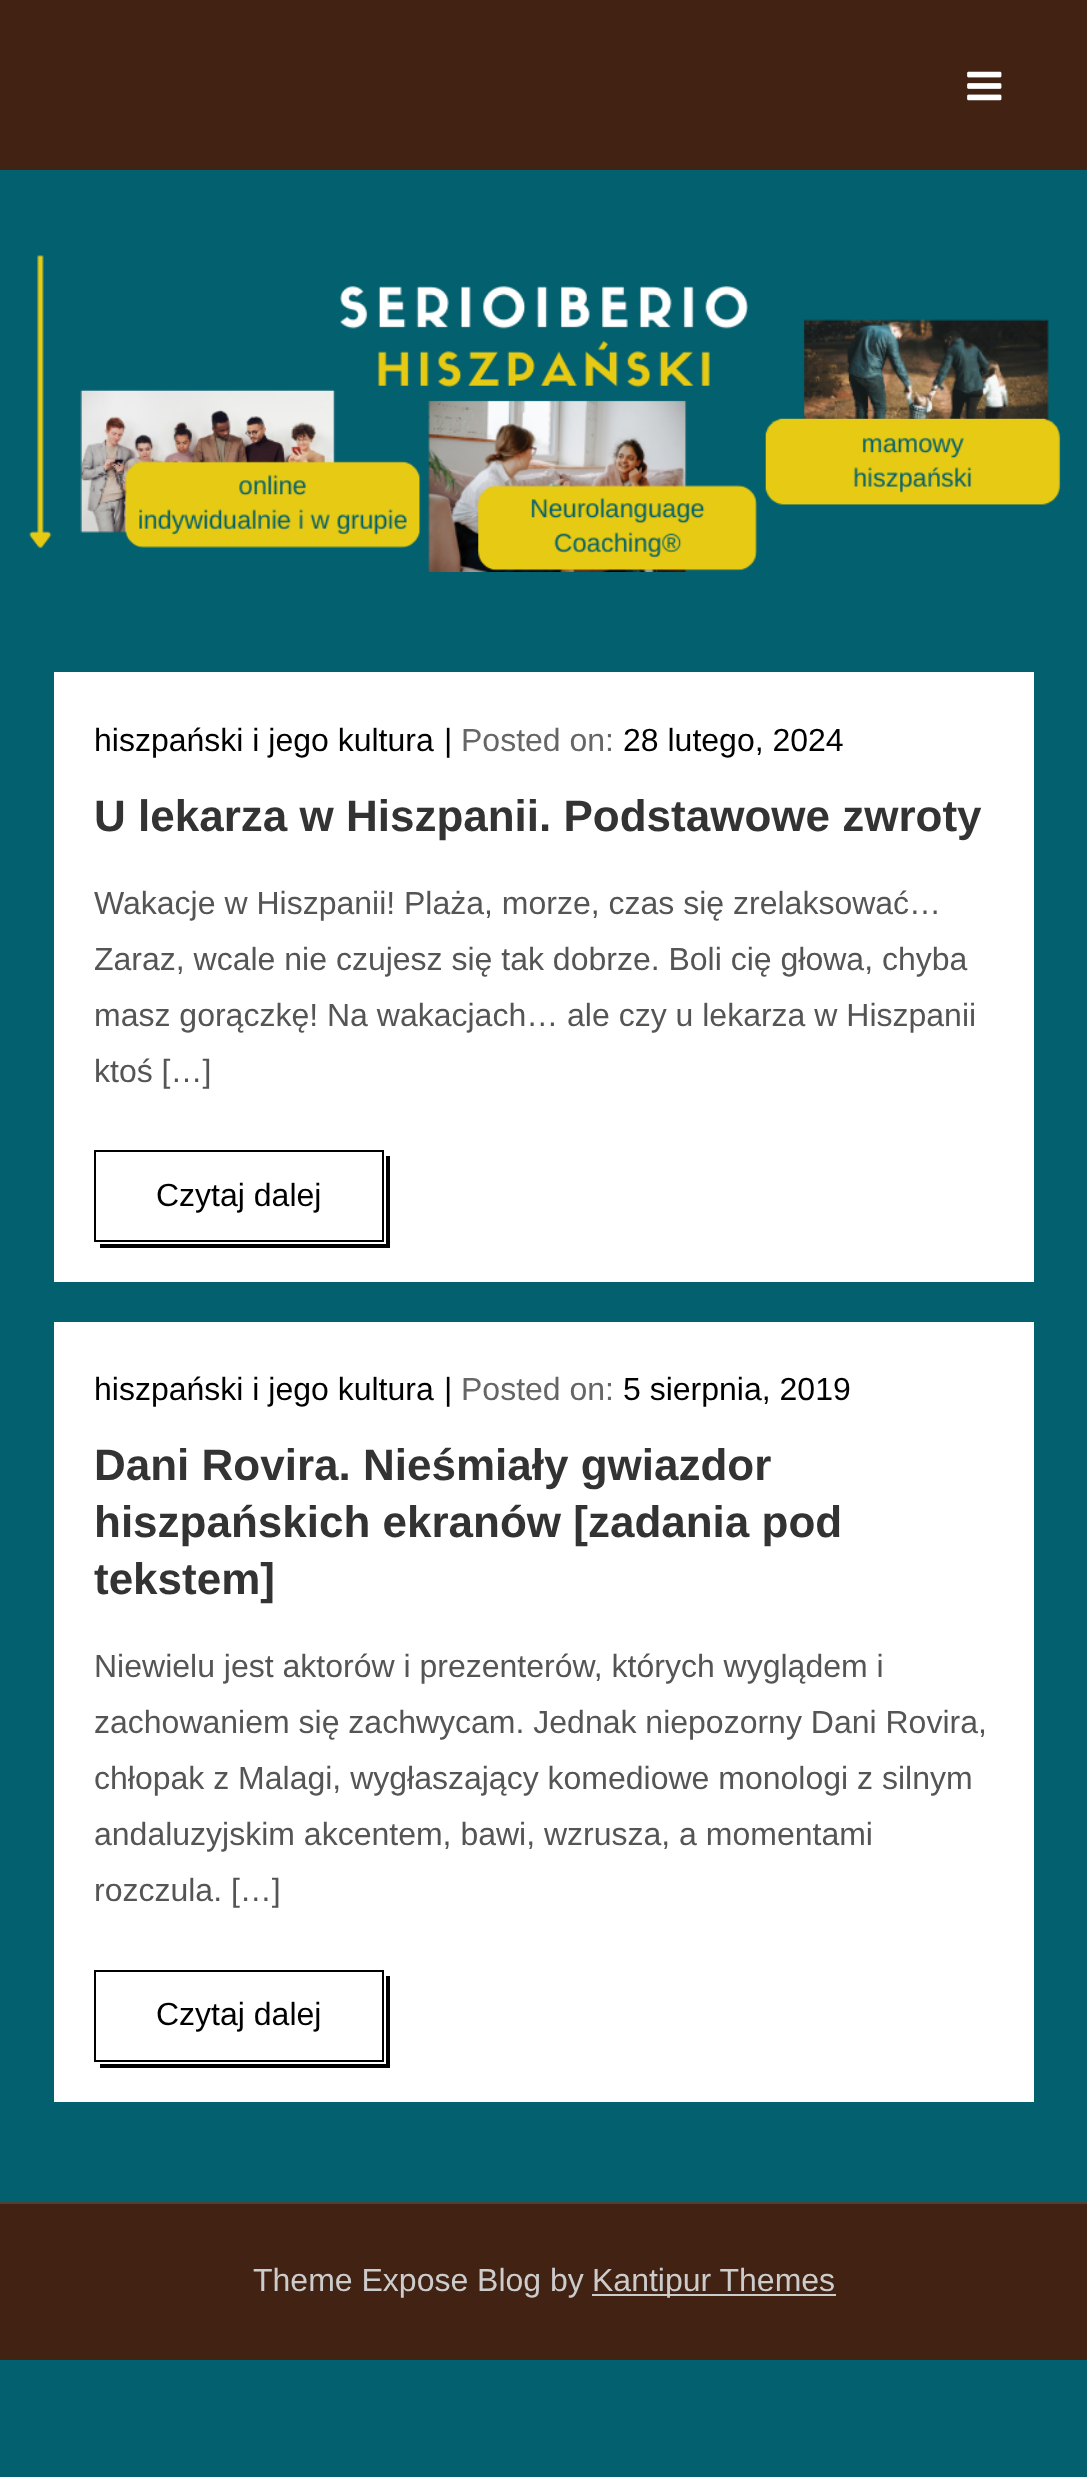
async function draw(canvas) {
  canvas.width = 1087;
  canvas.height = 2477;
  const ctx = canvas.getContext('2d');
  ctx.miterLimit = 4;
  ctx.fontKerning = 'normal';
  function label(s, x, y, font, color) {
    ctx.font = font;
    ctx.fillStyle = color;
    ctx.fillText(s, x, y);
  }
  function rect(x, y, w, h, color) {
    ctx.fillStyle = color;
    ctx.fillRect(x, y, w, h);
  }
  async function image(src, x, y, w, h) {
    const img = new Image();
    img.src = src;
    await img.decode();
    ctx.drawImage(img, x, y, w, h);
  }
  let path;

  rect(0, 0, 1087, 2477, '#03606e');
  rect(0, 0, 1087, 170, '#422213');
  await image('assets/img1.png', 967, 71, 35, 30);
  await image('assets/img2.png', 29, 255, 1032, 317);
  rect(54, 672, 980, 610, '#fff');
  label('hiszpański i jego kultura', 94, 751, '32px Liberation Sans', '#000');
  label('|', 444, 751, '32px Liberation Sans', '#000');
  label('Posted on:', 461, 751, '32px Liberation Sans', '#666');
  label('28 lutego, 2024', 623, 751, '32px Liberation Sans', '#000');
  label('U lekarza w Hiszpanii. Podstawowe zwroty', 94, 831, 'bold 44px Liberation Sans', '#333');
  label('Wakacje w Hiszpanii! Plaża, morze, czas się zrelaksować…', 94, 914, '32px Liberation Sans', '#555');
  label('Zaraz, wcale nie czujesz się tak dobrze. Boli cię głowa, chyba', 94, 970, '32px Liberation Sans', '#555');
  label('masz gorączkę! Na wakacjach… ale czy u lekarza w Hiszpanii', 94, 1026, '32px Liberation Sans', '#555');
  label('ktoś […]', 94, 1082, '32px Liberation Sans', '#555');
  ctx.fillStyle = '#000';
  path = new Path2D('M100 1242V1248H390V1156H384V1242Z');
  ctx.fill(path);
  ctx.strokeStyle = '#fff';
  ctx.lineWidth = 2;
  ctx.strokeRect(93, 1149, 292, 94);
  ctx.strokeStyle = '#000';
  ctx.strokeRect(95, 1151, 288, 90);
  label('Czytaj dalej', 156, 1206, '32px Liberation Sans', '#000');
  rect(54, 1322, 980, 780, '#fff');
  label('hiszpański i jego kultura', 94, 1400, '32px Liberation Sans', '#000');
  label('|', 444, 1400, '32px Liberation Sans', '#000');
  label('Posted on:', 461, 1400, '32px Liberation Sans', '#666');
  label('5 sierpnia, 2019', 623, 1400, '32px Liberation Sans', '#000');
  label('Dani Rovira. Nieśmiały gwiazdor', 94, 1480, 'bold 44px Liberation Sans', '#333');
  label('hiszpańskich ekranów [zadania pod', 94, 1537, 'bold 44px Liberation Sans', '#333');
  label('tekstem]', 94, 1594, 'bold 44px Liberation Sans', '#333');
  label('Niewielu jest aktorów i prezenterów, których wyglądem i', 94, 1677, '32px Liberation Sans', '#555');
  label('zachowaniem się zachwycam. Jednak niepozorny Dani Rovira,', 94, 1733, '32px Liberation Sans', '#555');
  label('chłopak z Malagi, wygłaszający komediowe monologi z silnym', 94, 1789, '32px Liberation Sans', '#555');
  label('andaluzyjskim akcentem, bawi, wzrusza, a momentami', 94, 1845, '32px Liberation Sans', '#555');
  label('rozczula. […]', 94, 1901, '32px Liberation Sans', '#555');
  ctx.fillStyle = '#000';
  path = new Path2D('M100 2062V2068H390V1976H384V2062Z');
  ctx.fill(path);
  ctx.strokeStyle = '#fff';
  ctx.strokeRect(93, 1969, 292, 94);
  ctx.strokeStyle = '#000';
  ctx.strokeRect(95, 1971, 288, 90);
  label('Czytaj dalej', 156, 2025, '32px Liberation Sans', '#000');
  rect(0, 2204, 1087, 156, '#422213');
  rect(0, 2202, 1087, 2, '#513e35');
  label('Theme Expose Blog by', 253, 2291, '32px Liberation Sans', '#ccc');
  rect(592, 2294, 244, 2, '#ccc');
  label('Kantipur Themes', 592, 2291, '32px Liberation Sans', '#ccc');
}

draw(document.querySelector('canvas'));
